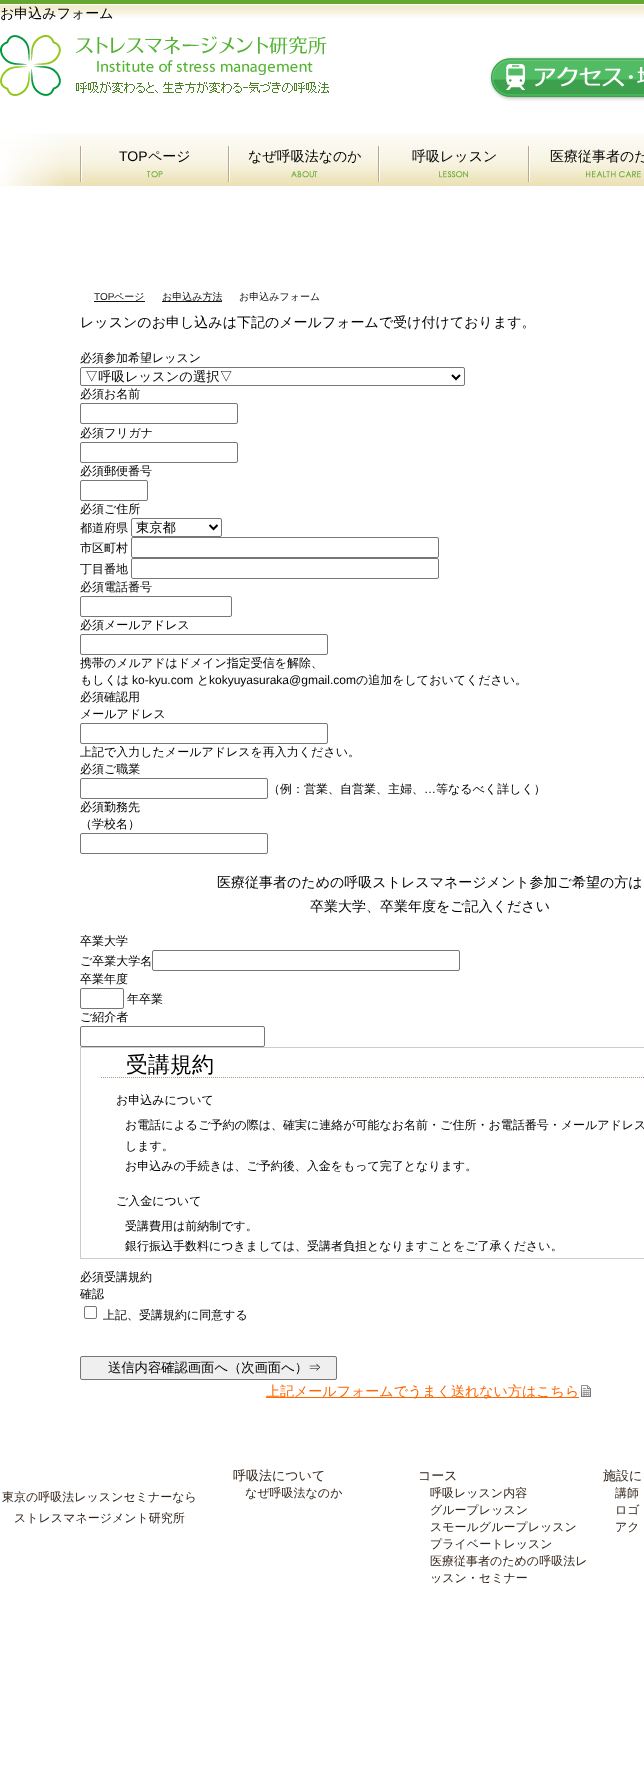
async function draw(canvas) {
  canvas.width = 644;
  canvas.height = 1791;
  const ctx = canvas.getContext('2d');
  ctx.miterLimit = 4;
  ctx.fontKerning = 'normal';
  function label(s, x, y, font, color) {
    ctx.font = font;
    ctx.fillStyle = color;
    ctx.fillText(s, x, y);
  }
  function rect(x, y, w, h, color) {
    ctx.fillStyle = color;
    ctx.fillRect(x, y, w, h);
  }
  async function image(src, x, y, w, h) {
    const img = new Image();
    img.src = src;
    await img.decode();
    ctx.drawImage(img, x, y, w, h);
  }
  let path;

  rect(0, 0, 644, 1791, '#fff');
  await image('assets/img1.png', 0, 0, 644, 18);
  label('お申込みフォーム', 0, 18, '500 14px WenQuanYi Zen Hei', '#000');
  await image('assets/img2.png', 0, 35, 329, 61);
  await image('assets/img3.png', 489, 56, 155, 45);
  await image('assets/img4.png', 0, 133, 644, 53);
  label('TOP', 119, 161, '14px Liberation Sans', '#000');
  label('ページ', 148, 161, '500 14px WenQuanYi Zen Hei', '#000');
  label('なぜ呼吸法なのか', 248, 161, '500 14px WenQuanYi Zen Hei', '#000');
  label('呼吸レッスン', 412, 161, '500 14px WenQuanYi Zen Hei', '#000');
  label('医療従事者のた', 550, 161, '500 14px WenQuanYi Zen Hei', '#000');
  label('TOP', 94, 300, '10px Liberation Sans', '#111');
  rect(94, 301, 51, 1, '#111');
  label('ページ', 114, 300, '500 10px WenQuanYi Zen Hei', '#111');
  rect(162, 301, 60, 1, '#111');
  label('お申込み方法', 162, 300, '500 10px WenQuanYi Zen Hei', '#111');
  label('お申込みフォーム', 239, 300, '500 10px WenQuanYi Zen Hei', '#111');
  label('レッスンのお申し込みは下記のメールフォームで受け付けております。', 80, 327, '500 14px WenQuanYi Zen Hei', '#000');
  label('必須参加希望レッスン', 80, 362, '500 12px WenQuanYi Zen Hei', '#000');
  ctx.beginPath();
  ctx.roundRect(80.5, 367.5, 384, 18, 1.5);
  ctx.strokeStyle = '#767676';
  ctx.stroke();
  path = new Path2D('M452 375L456 379L460 375');
  ctx.strokeStyle = '#000';
  ctx.lineWidth = 2;
  ctx.stroke(path);
  label('▽呼吸レッスンの選択▽', 85, 381, '500 13.3px WenQuanYi Zen Hei', '#000');
  label('必須お名前', 80, 398, '500 12px WenQuanYi Zen Hei', '#000');
  ctx.beginPath();
  ctx.roundRect(80.5, 403.5, 157, 20, 1.5);
  ctx.strokeStyle = '#767676';
  ctx.lineWidth = 1;
  ctx.stroke();
  label('必須フリガナ', 80, 437, '500 12px WenQuanYi Zen Hei', '#000');
  ctx.beginPath();
  ctx.roundRect(80.5, 442.5, 157, 20, 1.5);
  ctx.stroke();
  label('必須郵便番号', 80, 475, '500 12px WenQuanYi Zen Hei', '#000');
  ctx.beginPath();
  ctx.roundRect(80.5, 480.5, 67, 20, 1.5);
  ctx.stroke();
  label('必須ご住所', 80, 513, '500 12px WenQuanYi Zen Hei', '#000');
  label('都道府県', 80, 532, '500 12px WenQuanYi Zen Hei', '#000');
  ctx.beginPath();
  ctx.roundRect(131.5, 518.5, 90, 18, 1.5);
  ctx.stroke();
  path = new Path2D('M209.5 525L213.5 529L217.5 525');
  ctx.strokeStyle = '#000';
  ctx.lineWidth = 2;
  ctx.stroke(path);
  label('東京都', 136, 532, '500 13.3px WenQuanYi Zen Hei', '#000');
  label('市区町村', 80, 552, '500 12px WenQuanYi Zen Hei', '#000');
  ctx.beginPath();
  ctx.roundRect(131.5, 537.5, 307, 20, 1.5);
  ctx.strokeStyle = '#767676';
  ctx.lineWidth = 1;
  ctx.stroke();
  label('丁目番地', 80, 573, '500 12px WenQuanYi Zen Hei', '#000');
  ctx.beginPath();
  ctx.roundRect(131.5, 558.5, 307, 20, 1.5);
  ctx.stroke();
  label('必須電話番号', 80, 591, '500 12px WenQuanYi Zen Hei', '#000');
  ctx.beginPath();
  ctx.roundRect(80.5, 596.5, 151, 20, 1.5);
  ctx.stroke();
  label('必須メールアドレス', 80, 629, '500 12px WenQuanYi Zen Hei', '#000');
  ctx.beginPath();
  ctx.roundRect(80.5, 634.5, 247, 20, 1.5);
  ctx.stroke();
  label('携帯のメルアドはドメイン指定受信を解除、', 80, 667, '500 12px WenQuanYi Zen Hei', '#000');
  label('もしくは', 80, 684, '500 12px WenQuanYi Zen Hei', '#000');
  label('ko-kyu.com', 132, 684, '12px Liberation Sans', '#000');
  label('と', 197, 684, '500 12px WenQuanYi Zen Hei', '#000');
  label('kokyuyasuraka@gmail.com', 209, 684, '12px Liberation Sans', '#000');
  label('の追加をしておいてください。', 356, 684, '500 12px WenQuanYi Zen Hei', '#000');
  label('必須確認用', 80, 701, '500 12px WenQuanYi Zen Hei', '#000');
  label('メールアドレス', 80, 718, '500 12px WenQuanYi Zen Hei', '#000');
  ctx.beginPath();
  ctx.roundRect(80.5, 723.5, 247, 20, 1.5);
  ctx.stroke();
  label('上記で入力したメールアドレスを再入力ください。', 80, 756, '500 12px WenQuanYi Zen Hei', '#000');
  label('必須ご職業', 80, 773, '500 12px WenQuanYi Zen Hei', '#000');
  ctx.beginPath();
  ctx.roundRect(80.5, 778.5, 187, 20, 1.5);
  ctx.stroke();
  label('（例：営業、自営業、主婦、', 268, 793, '500 12px WenQuanYi Zen Hei', '#000');
  label('…', 424, 793, '12px Liberation Sans', '#000');
  label('等なるべく詳しく）', 436, 793, '500 12px WenQuanYi Zen Hei', '#000');
  label('必須勤務先', 80, 811, '500 12px WenQuanYi Zen Hei', '#000');
  label('（学校名）', 80, 828, '500 12px WenQuanYi Zen Hei', '#000');
  ctx.beginPath();
  ctx.roundRect(80.5, 833.5, 187, 20, 1.5);
  ctx.stroke();
  label('医療従事者のための呼吸ストレスマネージメント参加ご希望の方は', 217, 887, '500 14px WenQuanYi Zen Hei', '#000');
  label('卒業大学、卒業年度をご記入ください', 310, 911, '500 14px WenQuanYi Zen Hei', '#000');
  label('卒業大学', 80, 945, '500 12px WenQuanYi Zen Hei', '#000');
  label('ご卒業大学名', 80, 965, '500 12px WenQuanYi Zen Hei', '#000');
  ctx.beginPath();
  ctx.roundRect(152.5, 950.5, 307, 20, 1.5);
  ctx.stroke();
  label('卒業年度', 80, 983, '500 12px WenQuanYi Zen Hei', '#000');
  ctx.beginPath();
  ctx.roundRect(80.5, 988.5, 43, 20, 1.5);
  ctx.stroke();
  label('年卒業', 127, 1003, '500 12px WenQuanYi Zen Hei', '#000');
  label('ご紹介者', 80, 1021, '500 12px WenQuanYi Zen Hei', '#000');
  ctx.beginPath();
  ctx.roundRect(80.5, 1026.5, 184, 20, 1.5);
  ctx.stroke();
  ctx.strokeStyle = '#ccc';
  ctx.strokeRect(80.5, 1047.5, 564, 211);
  path = new Path2D('M101 1077.5H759');
  ctx.strokeStyle = '#b29683';
  ctx.setLineDash([1, 1]);
  ctx.stroke(path);
  label('受講規約', 126, 1072, '500 22px WenQuanYi Zen Hei', '#000');
  label('お申込みについて', 116, 1104, '500 12px WenQuanYi Zen Hei', '#000');
  label('お電話によるご予約の際は、確実に連絡が可能なお名前・ご住所・お電話番号・メールアドレス', 125, 1129, '500 12px WenQuanYi Zen Hei', '#000');
  label('します。', 125, 1150, '500 12px WenQuanYi Zen Hei', '#000');
  label('お申込みの手続きは、ご予約後、入金をもって完了となります。', 125, 1170, '500 12px WenQuanYi Zen Hei', '#000');
  label('ご入金について', 116, 1205, '500 12px WenQuanYi Zen Hei', '#000');
  label('受講費用は前納制です。', 125, 1230, '500 12px WenQuanYi Zen Hei', '#000');
  label('銀行振込手数料につきましては、受講者負担となりますことをご了承ください。', 125, 1250, '500 12px WenQuanYi Zen Hei', '#000');
  label('必須受講規約', 80, 1281, '500 12px WenQuanYi Zen Hei', '#000');
  label('確認', 80, 1298, '500 12px WenQuanYi Zen Hei', '#000');
  ctx.beginPath();
  ctx.roundRect(84.5, 1306.5, 12, 12, 1.5);
  ctx.strokeStyle = '#767676';
  ctx.setLineDash([]);
  ctx.stroke();
  label('上記、受講規約に同意する', 103, 1319, '500 12px WenQuanYi Zen Hei', '#000');
  ctx.fillStyle = '#efefef';
  ctx.beginPath();
  ctx.roundRect(80.5, 1356.5, 256, 23, 1.5);
  ctx.fill();
  ctx.stroke();
  label('送信内容確認画面へ（次画面へ）⇒', 108, 1372, '500 13.3px WenQuanYi Zen Hei', '#000');
  rect(266, 1397, 313, 1, '#f60');
  label('上記メールフォームでうまく送れない方はこちら', 266, 1396, '500 14px WenQuanYi Zen Hei', '#f60');
  await image('assets/img5.png', 581, 1385, 10, 12);
  label('東京の呼吸法レッスンセミナーなら', 2, 1501, '500 12px WenQuanYi Zen Hei', '#2c1f15');
  label('ストレスマネージメント研究所', 14, 1522, '500 12px WenQuanYi Zen Hei', '#2c1f15');
  label('呼吸法について', 233, 1480, '500 13px WenQuanYi Zen Hei', '#2c1f15');
  label('なぜ呼吸法なのか', 245, 1497, '500 12px WenQuanYi Zen Hei', '#2c1f15');
  label('コース', 418, 1480, '500 13px WenQuanYi Zen Hei', '#2c1f15');
  label('呼吸レッスン内容', 430, 1497, '500 12px WenQuanYi Zen Hei', '#2c1f15');
  label('グループレッスン', 430, 1514, '500 12px WenQuanYi Zen Hei', '#2c1f15');
  label('スモールグループレッスン', 430, 1531, '500 12px WenQuanYi Zen Hei', '#2c1f15');
  label('プライベートレッスン', 430, 1548, '500 12px WenQuanYi Zen Hei', '#2c1f15');
  label('医療従事者のための呼吸法レ', 430, 1565, '500 12px WenQuanYi Zen Hei', '#2c1f15');
  label('ッスン・セミナー', 430, 1582, '500 12px WenQuanYi Zen Hei', '#2c1f15');
  label('施設に', 603, 1480, '500 13px WenQuanYi Zen Hei', '#2c1f15');
  label('講師', 615, 1497, '500 12px WenQuanYi Zen Hei', '#2c1f15');
  label('ロゴ', 615, 1514, '500 12px WenQuanYi Zen Hei', '#2c1f15');
  label('アク', 615, 1531, '500 12px WenQuanYi Zen Hei', '#2c1f15');
}

draw(document.querySelector('canvas'));
